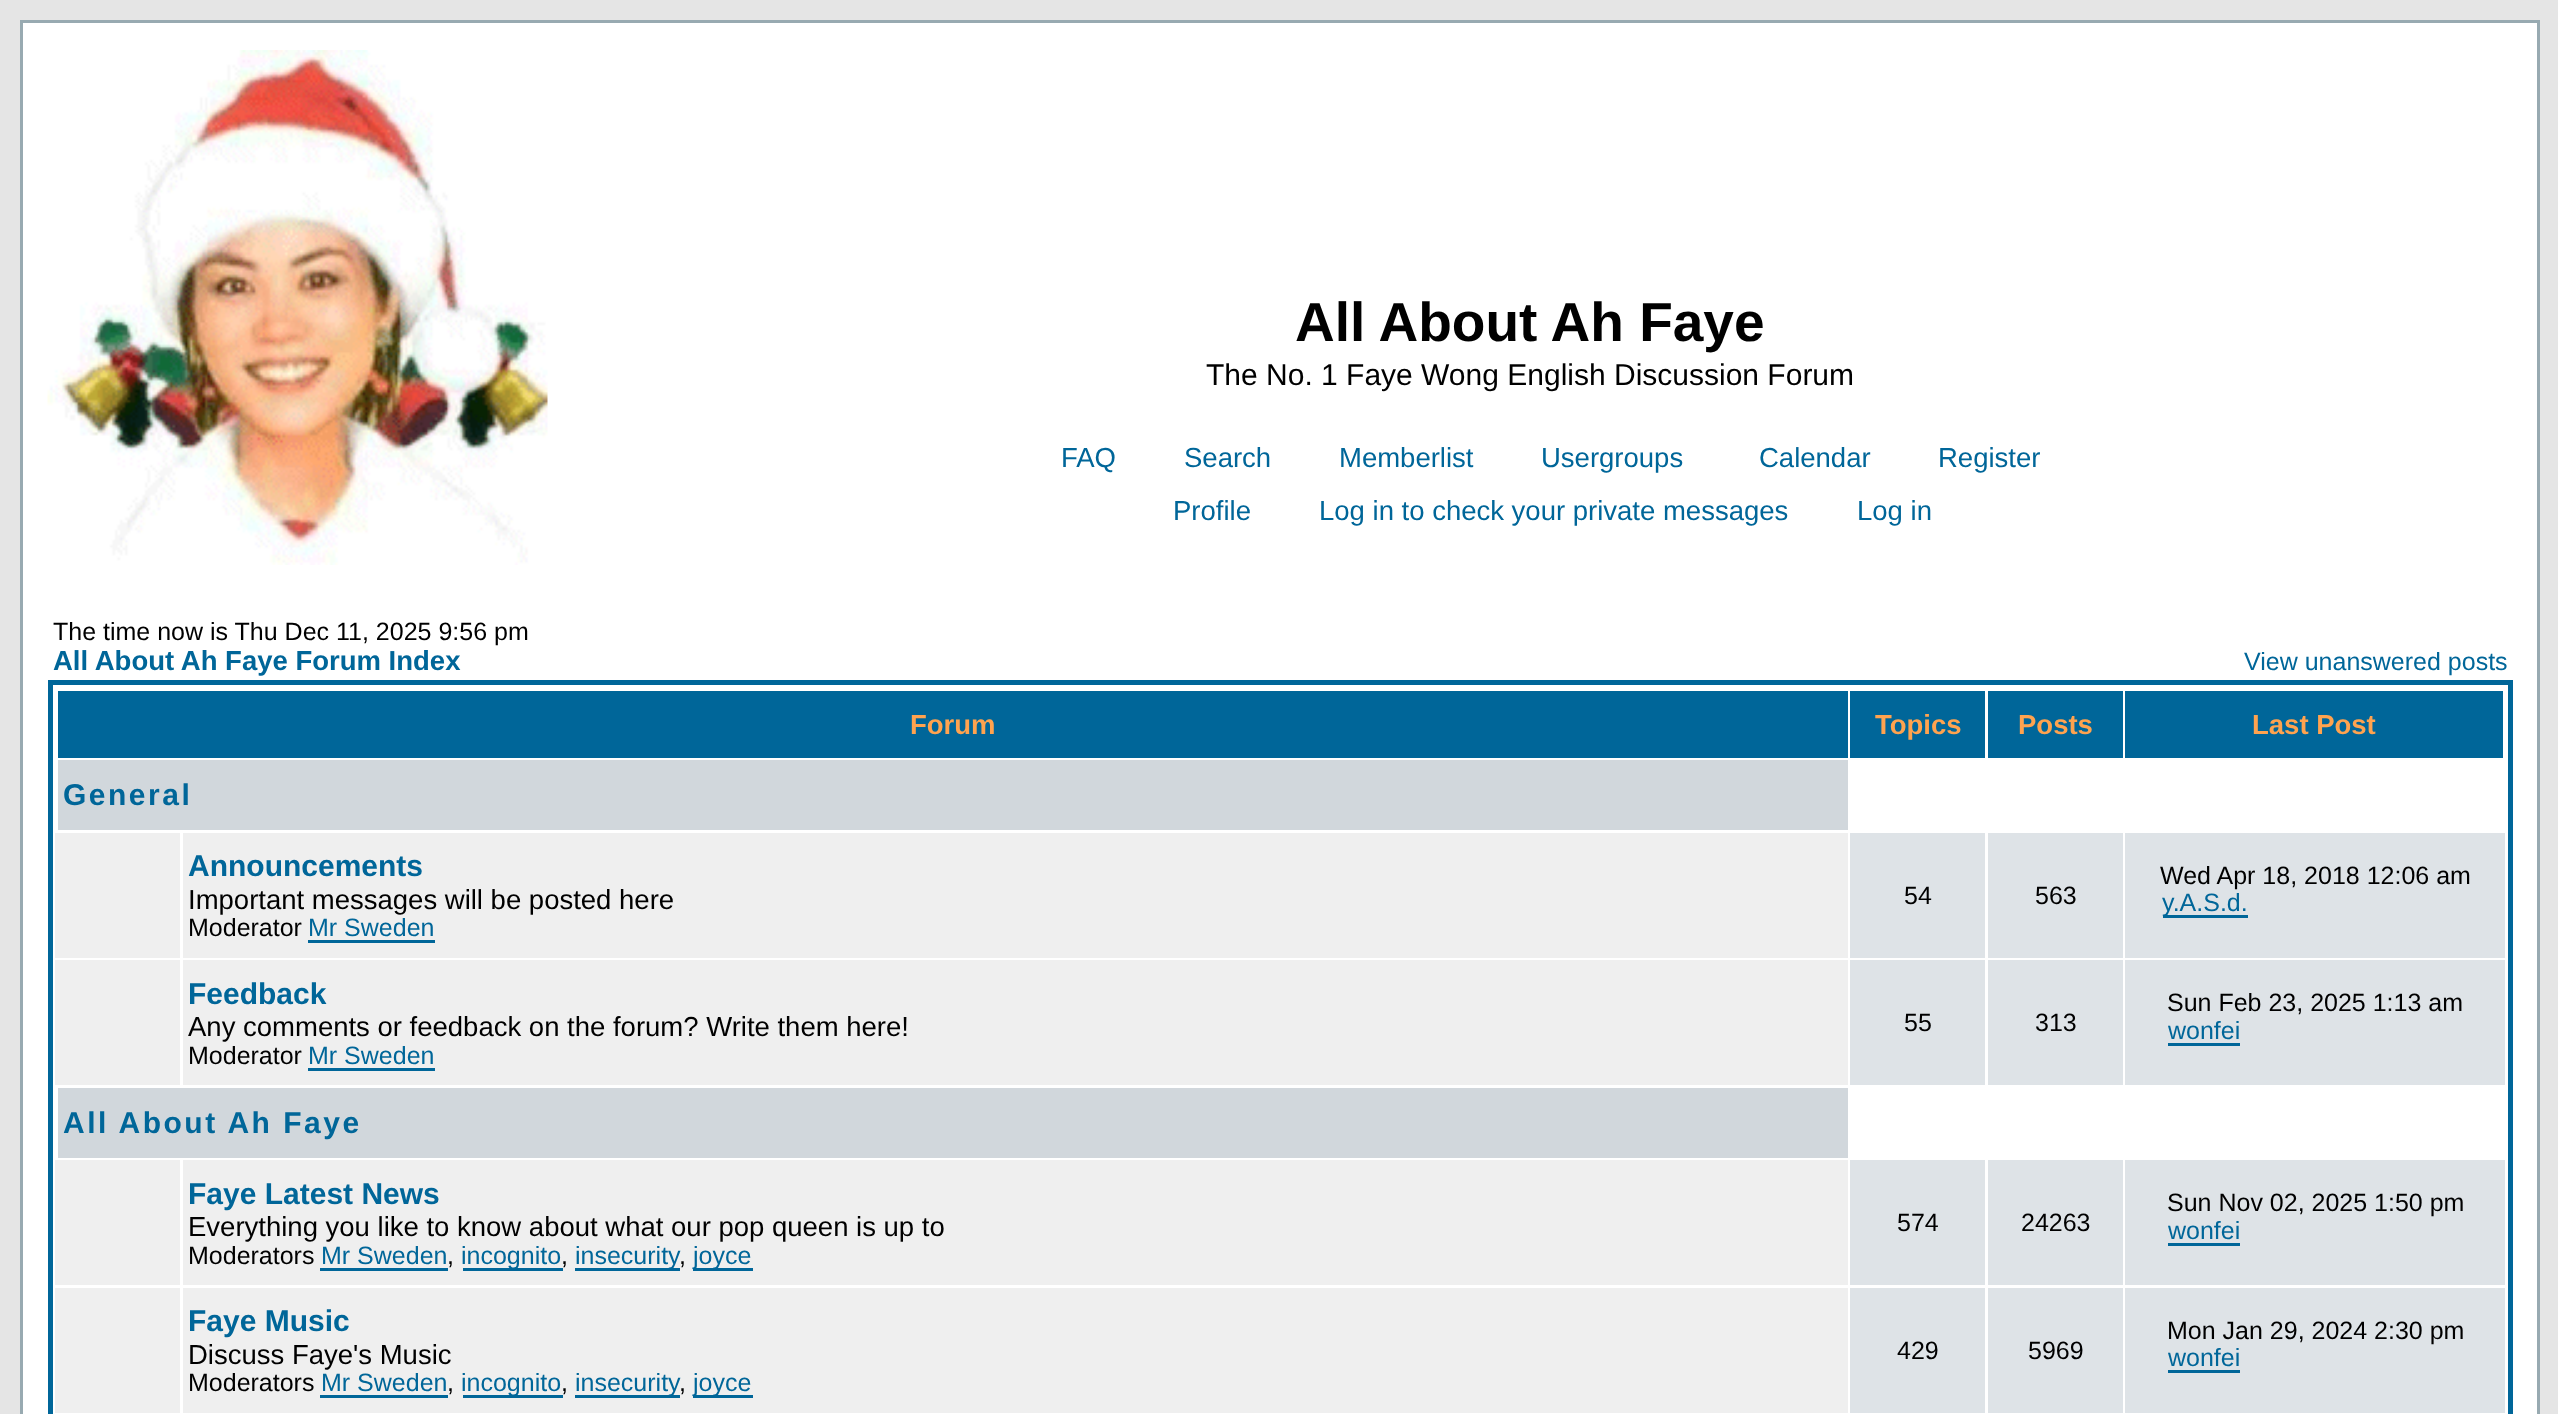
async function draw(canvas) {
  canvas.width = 2558;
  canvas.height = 1414;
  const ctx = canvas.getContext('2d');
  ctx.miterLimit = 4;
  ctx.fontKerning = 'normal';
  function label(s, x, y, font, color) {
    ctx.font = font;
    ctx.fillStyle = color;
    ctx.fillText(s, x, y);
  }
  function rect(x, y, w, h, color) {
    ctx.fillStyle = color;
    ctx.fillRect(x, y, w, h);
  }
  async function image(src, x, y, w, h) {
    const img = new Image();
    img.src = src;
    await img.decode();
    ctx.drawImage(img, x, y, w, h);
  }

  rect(0, 0, 2558, 1414, '#e5e5e5');
  ctx.fillStyle = '#fff';
  ctx.beginPath();
  ctx.rect(21.5, 21.5, 2517, 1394);
  ctx.fill();
  ctx.strokeStyle = '#98aab1';
  ctx.lineWidth = 3;
  ctx.stroke();
  await image('assets/img1.png', 47, 50, 501, 515);
  label('All About Ah Faye', 1295, 341, 'bold 55px Liberation Sans', '#000');
  label('The No. 1 Faye Wong English Discussion Forum', 1206, 385, '30px Liberation Sans', '#000');
  label('FAQ', 1061, 467, '27.5px Liberation Sans', '#069');
  label('Search', 1184, 467, '27.5px Liberation Sans', '#069');
  label('Memberlist', 1339, 467, '27.5px Liberation Sans', '#069');
  label('Usergroups', 1541, 467, '27.5px Liberation Sans', '#069');
  label('Calendar', 1759, 467, '27.5px Liberation Sans', '#069');
  label('Register', 1938, 467, '27.5px Liberation Sans', '#069');
  label('Profile', 1173, 520, '27.5px Liberation Sans', '#069');
  label('Log in to check your private messages', 1319, 520, '27.5px Liberation Sans', '#069');
  label('Log in', 1857, 520, '27.5px Liberation Sans', '#069');
  label('The time now is Thu Dec 11, 2025 9:56 pm', 53, 640, '25px Liberation Sans', '#000');
  label('All About Ah Faye Forum Index', 53, 670, 'bold 27.5px Liberation Sans', '#069');
  label('View unanswered posts', 2244, 670, '25px Liberation Sans', '#069');
  ctx.strokeStyle = '#069';
  ctx.lineWidth = 5;
  ctx.strokeRect(50.5, 682.5, 2460, 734);
  rect(58, 691, 1790, 67, '#069');
  label('Forum', 910, 734, 'bold 27.5px Liberation Sans', '#ffa34f');
  rect(1850, 691, 135, 67, '#069');
  label('Topics', 1875, 734, 'bold 27.5px Liberation Sans', '#ffa34f');
  rect(1988, 691, 135, 67, '#069');
  label('Posts', 2018, 734, 'bold 27.5px Liberation Sans', '#ffa34f');
  rect(2125, 691, 378, 67, '#069');
  label('Last Post', 2252, 734, 'bold 27.5px Liberation Sans', '#ffa34f');
  rect(58, 760, 1790, 70, '#d1d7dc');
  ctx.letterSpacing = '2.5px';
  label('General', 63, 805, 'bold 30px Liberation Sans', '#069');
  rect(55, 833, 125, 125, '#efefef');
  rect(183, 833, 1665, 125, '#efefef');
  ctx.letterSpacing = '0px';
  label('Announcements', 188, 876, 'bold 30px Liberation Sans', '#069');
  label('Important messages will be posted here', 188, 909, '27.5px Liberation Sans', '#000');
  label('Moderator', 188, 936, '25px Liberation Sans', '#000');
  label('Mr Sweden', 308, 936, '25px Liberation Sans', '#069');
  rect(308, 940, 127, 3, '#069');
  rect(1850, 833, 135, 125, '#dee3e7');
  label('54', 1904, 904, '25px Liberation Sans', '#000');
  rect(1988, 833, 135, 125, '#dee3e7');
  label('563', 2035, 904, '25px Liberation Sans', '#000');
  rect(2125, 833, 380, 125, '#dee3e7');
  label('Wed Apr 18, 2018 12:06 am', 2160, 884, '25px Liberation Sans', '#000');
  rect(2163, 915, 85, 3, '#069');
  label('y.A.S.d.', 2162, 911, '25px Liberation Sans', '#069');
  rect(55, 960, 125, 125, '#efefef');
  rect(183, 960, 1665, 125, '#efefef');
  label('Feedback', 188, 1004, 'bold 30px Liberation Sans', '#069');
  label('Any comments or feedback on the forum? Write them here!', 188, 1036, '27.5px Liberation Sans', '#000');
  label('Moderator', 188, 1064, '25px Liberation Sans', '#000');
  label('Mr Sweden', 308, 1064, '25px Liberation Sans', '#069');
  rect(308, 1068, 127, 3, '#069');
  rect(1850, 960, 135, 125, '#dee3e7');
  label('55', 1904, 1031, '25px Liberation Sans', '#000');
  rect(1988, 960, 135, 125, '#dee3e7');
  label('313', 2035, 1031, '25px Liberation Sans', '#000');
  rect(2125, 960, 380, 125, '#dee3e7');
  label('Sun Feb 23, 2025 1:13 am', 2167, 1011, '25px Liberation Sans', '#000');
  label('wonfei', 2168, 1039, '25px Liberation Sans', '#069');
  rect(2168, 1043, 72, 3, '#069');
  rect(58, 1088, 1790, 70, '#d1d7dc');
  ctx.letterSpacing = '2.5px';
  label('All About Ah Faye', 63, 1133, 'bold 30px Liberation Sans', '#069');
  rect(55, 1160, 125, 125, '#efefef');
  rect(183, 1160, 1665, 125, '#efefef');
  ctx.letterSpacing = '0px';
  label('Faye Latest News', 188, 1204, 'bold 30px Liberation Sans', '#069');
  label('Everything you like to know about what our pop queen is up to', 188, 1236, '27.5px Liberation Sans', '#000');
  label('Moderators', 188, 1264, '25px Liberation Sans', '#000');
  label('Mr Sweden', 321, 1264, '25px Liberation Sans', '#069');
  label(',', 447, 1264, '25px Liberation Sans', '#000');
  rect(320, 1268, 128, 3, '#069');
  rect(463, 1268, 100, 3, '#069');
  label('incognito', 461, 1264, '25px Liberation Sans', '#069');
  label(',', 561, 1264, '25px Liberation Sans', '#000');
  rect(575, 1268, 105, 3, '#069');
  label('insecurity', 575, 1264, '25px Liberation Sans', '#069');
  label(',', 679, 1264, '25px Liberation Sans', '#000');
  rect(693, 1268, 60, 3, '#069');
  label('joyce', 693, 1264, '25px Liberation Sans', '#069');
  rect(1850, 1160, 135, 125, '#dee3e7');
  label('574', 1897, 1231, '25px Liberation Sans', '#000');
  rect(1988, 1160, 135, 125, '#dee3e7');
  label('24263', 2021, 1231, '25px Liberation Sans', '#000');
  rect(2125, 1160, 380, 125, '#dee3e7');
  label('Sun Nov 02, 2025 1:50 pm', 2167, 1211, '25px Liberation Sans', '#000');
  label('wonfei', 2168, 1239, '25px Liberation Sans', '#069');
  rect(2168, 1243, 72, 3, '#069');
  rect(55, 1288, 125, 125, '#efefef');
  rect(183, 1288, 1665, 125, '#efefef');
  label('Faye Music', 188, 1331, 'bold 30px Liberation Sans', '#069');
  label('Discuss Faye\'s Music', 188, 1364, '27.5px Liberation Sans', '#000');
  label('Moderators', 188, 1391, '25px Liberation Sans', '#000');
  label('Mr Sweden', 321, 1391, '25px Liberation Sans', '#069');
  label(',', 447, 1391, '25px Liberation Sans', '#000');
  rect(320, 1395, 128, 3, '#069');
  rect(463, 1395, 100, 3, '#069');
  label('incognito', 461, 1391, '25px Liberation Sans', '#069');
  label(',', 561, 1391, '25px Liberation Sans', '#000');
  rect(575, 1395, 105, 3, '#069');
  label('insecurity', 575, 1391, '25px Liberation Sans', '#069');
  label(',', 679, 1391, '25px Liberation Sans', '#000');
  rect(693, 1395, 60, 3, '#069');
  label('joyce', 693, 1391, '25px Liberation Sans', '#069');
  rect(1850, 1288, 135, 125, '#dee3e7');
  label('429', 1897, 1359, '25px Liberation Sans', '#000');
  rect(1988, 1288, 135, 125, '#dee3e7');
  label('5969', 2028, 1359, '25px Liberation Sans', '#000');
  rect(2125, 1288, 380, 125, '#dee3e7');
  label('Mon Jan 29, 2024 2:30 pm', 2167, 1339, '25px Liberation Sans', '#000');
  label('wonfei', 2168, 1366, '25px Liberation Sans', '#069');
  rect(2168, 1370, 72, 3, '#069');
}

draw(document.querySelector('canvas'));
